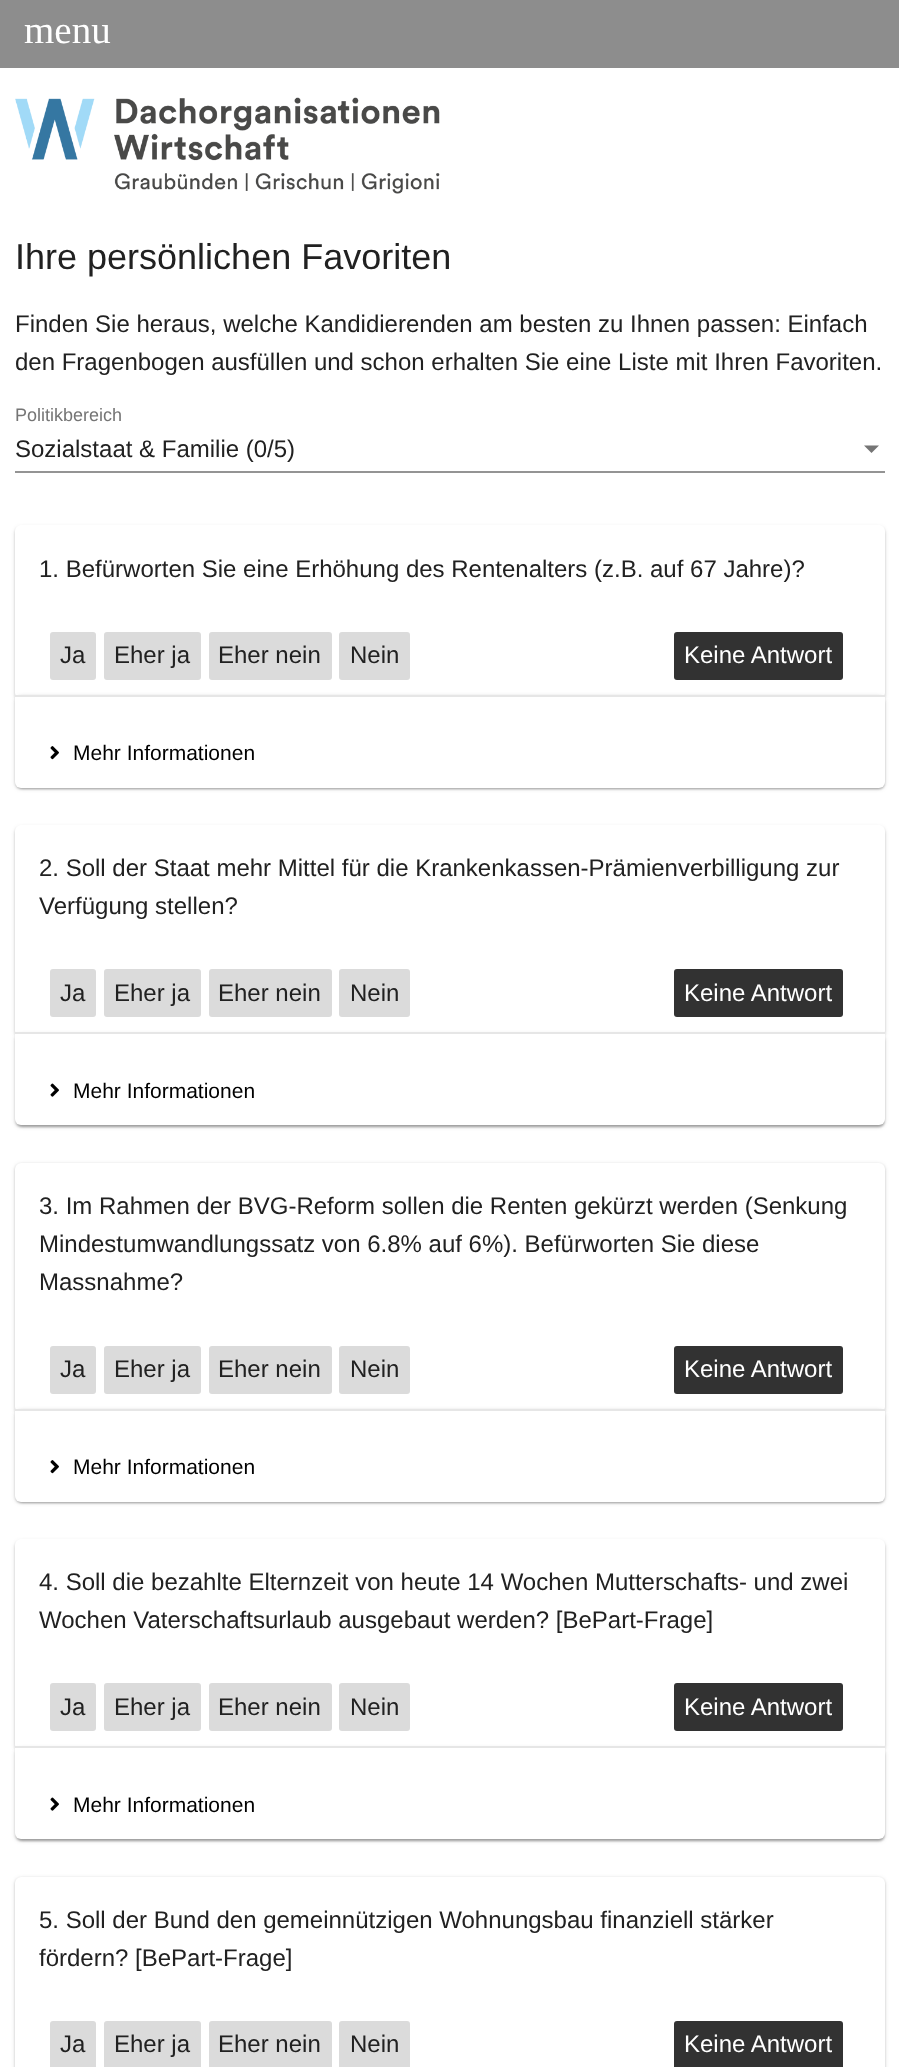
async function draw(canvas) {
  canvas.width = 899;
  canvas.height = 2067;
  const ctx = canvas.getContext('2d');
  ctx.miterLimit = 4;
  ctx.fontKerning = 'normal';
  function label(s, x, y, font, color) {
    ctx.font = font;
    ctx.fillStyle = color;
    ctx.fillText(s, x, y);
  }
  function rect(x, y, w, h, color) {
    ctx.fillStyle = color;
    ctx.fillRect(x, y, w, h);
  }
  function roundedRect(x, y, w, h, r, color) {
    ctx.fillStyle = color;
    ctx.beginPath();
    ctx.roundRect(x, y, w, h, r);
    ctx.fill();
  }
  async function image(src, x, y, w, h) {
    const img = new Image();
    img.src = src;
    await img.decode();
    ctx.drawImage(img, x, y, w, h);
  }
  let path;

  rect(0, 0, 899, 2067, '#fff');
  rect(0, 0, 899, 68, '#8d8d8d');
  label('menu', 24, 43, '39px Liberation Serif', '#fff');
  await image('assets/img1.png', 15, 97, 425, 97);
  label('Ihre persönlichen Favoriten', 15, 269, '36px Arimo', '#212121');
  label('Finden Sie heraus, welche Kandidierenden am besten zu Ihnen passen: Einfach', 15, 332, '24px Arimo', '#212121');
  label('den Fragenbogen ausfüllen und schon erhalten Sie eine Liste mit Ihren Favoriten.', 15, 370, '24px Arimo', '#212121');
  label('Politikbereich', 15, 421, '18px Arimo', '#757575');
  label('Sozialstaat & Familie (0/5)', 15, 457, '24px Arimo', '#212121');
  ctx.fillStyle = '#757575';
  path = new Path2D('M864 445.5H879L871.5 453Z');
  ctx.fill(path);
  rect(15, 471, 870, 2, '#949494');
  ctx.fillStyle = '#0000001f';
  ctx.filter = 'blur(2px)';
  ctx.beginPath();
  ctx.roundRect(15, 527, 870, 174, 6);
  ctx.fill();
  ctx.filter = 'none';
  ctx.fillStyle = '#00000024';
  ctx.filter = 'blur(1px)';
  ctx.beginPath();
  ctx.roundRect(15, 527, 870, 174, 6);
  ctx.fill();
  ctx.filter = 'none';
  roundedRect(15, 525, 870, 174, 6, '#fff');
  label('1. Befürworten Sie eine Erhöhung des Rentenalters (z.B. auf 67 Jahre)?', 39, 577, '24px Arimo', '#212121');
  roundedRect(50, 632, 46, 48, 3, '#dbdbdb');
  label('Ja', 60, 663, '24px Arimo', '#212121');
  roundedRect(104, 632, 97, 48, 3, '#dbdbdb');
  label('Eher ja', 114, 663, '24px Arimo', '#212121');
  roundedRect(209, 632, 123, 48, 3, '#dbdbdb');
  label('Eher nein', 218, 663, '24px Arimo', '#212121');
  roundedRect(339, 632, 71, 48, 3, '#dbdbdb');
  label('Nein', 350, 663, '24px Arimo', '#212121');
  roundedRect(674, 632, 169, 48, 3, '#323232');
  label('Keine Antwort', 684, 663, '24px Arimo', '#fff');
  ctx.fillStyle = '#0000001f';
  ctx.filter = 'blur(2px)';
  ctx.beginPath();
  ctx.roundRect(15, 696, 870, 93, 6);
  ctx.fill();
  ctx.filter = 'none';
  ctx.fillStyle = '#00000024';
  ctx.filter = 'blur(1px)';
  ctx.beginPath();
  ctx.roundRect(15, 696, 870, 93, 6);
  ctx.fill();
  ctx.filter = 'none';
  ctx.fillStyle = '#00000033';
  ctx.filter = 'blur(1px)';
  ctx.beginPath();
  ctx.roundRect(17, 699, 867, 90, 5);
  ctx.fill();
  ctx.filter = 'none';
  ctx.fillStyle = '#fff';
  ctx.beginPath();
  ctx.roundRect(15, 695, 870, 93, [0, 0, 6, 6]);
  ctx.fill();
  rect(15, 695, 870, 2, '#e6e6e6');
  await image('assets/img2.png', 50, 746, 9, 14);
  label('Mehr Informationen', 73, 760, '21px Arimo', '#000');
  ctx.fillStyle = '#0000001f';
  ctx.filter = 'blur(2px)';
  ctx.beginPath();
  ctx.roundRect(15, 827, 870, 211, 6);
  ctx.fill();
  ctx.filter = 'none';
  ctx.fillStyle = '#00000024';
  ctx.filter = 'blur(1px)';
  ctx.beginPath();
  ctx.roundRect(15, 827, 870, 211, 6);
  ctx.fill();
  ctx.filter = 'none';
  roundedRect(15, 825, 870, 212, 6, '#fff');
  label('2. Soll der Staat mehr Mittel für die Krankenkassen-Prämienverbilligung zur', 39, 876, '24px Arimo', '#212121');
  label('Verfügung stellen?', 39, 914, '24px Arimo', '#212121');
  roundedRect(50, 969, 46, 48, 3, '#dbdbdb');
  label('Ja', 60, 1001, '24px Arimo', '#212121');
  roundedRect(104, 969, 97, 48, 3, '#dbdbdb');
  label('Eher ja', 114, 1001, '24px Arimo', '#212121');
  roundedRect(209, 969, 123, 48, 3, '#dbdbdb');
  label('Eher nein', 218, 1001, '24px Arimo', '#212121');
  roundedRect(339, 969, 71, 48, 3, '#dbdbdb');
  label('Nein', 350, 1001, '24px Arimo', '#212121');
  roundedRect(674, 969, 169, 48, 3, '#323232');
  label('Keine Antwort', 684, 1001, '24px Arimo', '#fff');
  ctx.fillStyle = '#0000001f';
  ctx.filter = 'blur(2px)';
  ctx.beginPath();
  ctx.roundRect(15, 1034, 870, 93, 6);
  ctx.fill();
  ctx.filter = 'none';
  ctx.fillStyle = '#00000024';
  ctx.filter = 'blur(1px)';
  ctx.beginPath();
  ctx.roundRect(15, 1034, 870, 93, 6);
  ctx.fill();
  ctx.filter = 'none';
  ctx.fillStyle = '#00000033';
  ctx.filter = 'blur(1px)';
  ctx.beginPath();
  ctx.roundRect(17, 1037, 867, 90, 5);
  ctx.fill();
  ctx.filter = 'none';
  ctx.fillStyle = '#fff';
  ctx.beginPath();
  ctx.roundRect(15, 1032, 870, 93, [0, 0, 6, 6]);
  ctx.fill();
  rect(15, 1032, 870, 2, '#e6e6e6');
  await image('assets/img3.png', 50, 1083, 9, 14);
  label('Mehr Informationen', 73, 1098, '21px Arimo', '#000');
  ctx.fillStyle = '#0000001f';
  ctx.filter = 'blur(2px)';
  ctx.beginPath();
  ctx.roundRect(15, 1164, 870, 251, 6);
  ctx.fill();
  ctx.filter = 'none';
  ctx.fillStyle = '#00000024';
  ctx.filter = 'blur(1px)';
  ctx.beginPath();
  ctx.roundRect(15, 1164, 870, 251, 6);
  ctx.fill();
  ctx.filter = 'none';
  roundedRect(15, 1163, 870, 250, 6, '#fff');
  label('3. Im Rahmen der BVG-Reform sollen die Renten gekürzt werden (Senkung', 39, 1214, '24px Arimo', '#212121');
  label('Mindestumwandlungssatz von 6.8% auf 6%). Befürworten Sie diese', 39, 1252, '24px Arimo', '#212121');
  label('Massnahme?', 39, 1290, '24px Arimo', '#212121');
  roundedRect(50, 1346, 46, 48, 3, '#dbdbdb');
  label('Ja', 60, 1377, '24px Arimo', '#212121');
  roundedRect(104, 1346, 97, 48, 3, '#dbdbdb');
  label('Eher ja', 114, 1377, '24px Arimo', '#212121');
  roundedRect(209, 1346, 123, 48, 3, '#dbdbdb');
  label('Eher nein', 218, 1377, '24px Arimo', '#212121');
  roundedRect(339, 1346, 71, 48, 3, '#dbdbdb');
  label('Nein', 350, 1377, '24px Arimo', '#212121');
  roundedRect(674, 1346, 169, 48, 3, '#323232');
  label('Keine Antwort', 684, 1377, '24px Arimo', '#fff');
  ctx.fillStyle = '#0000001f';
  ctx.filter = 'blur(2px)';
  ctx.beginPath();
  ctx.roundRect(15, 1410, 870, 93, 6);
  ctx.fill();
  ctx.filter = 'none';
  ctx.fillStyle = '#00000024';
  ctx.filter = 'blur(1px)';
  ctx.beginPath();
  ctx.roundRect(15, 1410, 870, 93, 6);
  ctx.fill();
  ctx.filter = 'none';
  ctx.fillStyle = '#00000033';
  ctx.filter = 'blur(1px)';
  ctx.beginPath();
  ctx.roundRect(17, 1413, 867, 90, 5);
  ctx.fill();
  ctx.filter = 'none';
  ctx.fillStyle = '#fff';
  ctx.beginPath();
  ctx.roundRect(15, 1409, 870, 93, [0, 0, 6, 6]);
  ctx.fill();
  rect(15, 1409, 870, 2, '#e6e6e6');
  await image('assets/img2.png', 50, 1460, 9, 14);
  label('Mehr Informationen', 73, 1474, '21px Arimo', '#000');
  ctx.fillStyle = '#0000001f';
  ctx.filter = 'blur(2px)';
  ctx.beginPath();
  ctx.roundRect(15, 1541, 870, 211, 6);
  ctx.fill();
  ctx.filter = 'none';
  ctx.fillStyle = '#00000024';
  ctx.filter = 'blur(1px)';
  ctx.beginPath();
  ctx.roundRect(15, 1541, 870, 211, 6);
  ctx.fill();
  ctx.filter = 'none';
  roundedRect(15, 1539, 870, 212, 6, '#fff');
  label('4. Soll die bezahlte Elternzeit von heute 14 Wochen Mutterschafts- und zwei', 39, 1590, '24px Arimo', '#212121');
  label('Wochen Vaterschaftsurlaub ausgebaut werden? [BePart-Frage]', 39, 1628, '24px Arimo', '#212121');
  roundedRect(50, 1683, 46, 48, 3, '#dbdbdb');
  label('Ja', 60, 1715, '24px Arimo', '#212121');
  roundedRect(104, 1683, 97, 48, 3, '#dbdbdb');
  label('Eher ja', 114, 1715, '24px Arimo', '#212121');
  roundedRect(209, 1683, 123, 48, 3, '#dbdbdb');
  label('Eher nein', 218, 1715, '24px Arimo', '#212121');
  roundedRect(339, 1683, 71, 48, 3, '#dbdbdb');
  label('Nein', 350, 1715, '24px Arimo', '#212121');
  roundedRect(674, 1683, 169, 48, 3, '#323232');
  label('Keine Antwort', 684, 1715, '24px Arimo', '#fff');
  ctx.fillStyle = '#0000001f';
  ctx.filter = 'blur(2px)';
  ctx.beginPath();
  ctx.roundRect(15, 1748, 870, 93, 6);
  ctx.fill();
  ctx.filter = 'none';
  ctx.fillStyle = '#00000024';
  ctx.filter = 'blur(1px)';
  ctx.beginPath();
  ctx.roundRect(15, 1748, 870, 93, 6);
  ctx.fill();
  ctx.filter = 'none';
  ctx.fillStyle = '#00000033';
  ctx.filter = 'blur(1px)';
  ctx.beginPath();
  ctx.roundRect(17, 1751, 867, 90, 5);
  ctx.fill();
  ctx.filter = 'none';
  ctx.fillStyle = '#fff';
  ctx.beginPath();
  ctx.roundRect(15, 1746, 870, 93, [0, 0, 6, 6]);
  ctx.fill();
  rect(15, 1746, 870, 2, '#e6e6e6');
  await image('assets/img3.png', 50, 1797, 9, 14);
  label('Mehr Informationen', 73, 1812, '21px Arimo', '#000');
  ctx.fillStyle = '#0000001f';
  ctx.filter = 'blur(2px)';
  ctx.beginPath();
  ctx.roundRect(15, 1878, 870, 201, 6);
  ctx.fill();
  ctx.filter = 'none';
  ctx.fillStyle = '#00000024';
  ctx.filter = 'blur(1px)';
  ctx.beginPath();
  ctx.roundRect(15, 1878, 870, 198, 6);
  ctx.fill();
  ctx.filter = 'none';
  roundedRect(15, 1877, 870, 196, 6, '#fff');
  label('5. Soll der Bund den gemeinnützigen Wohnungsbau finanziell stärker', 39, 1928, '24px Arimo', '#212121');
  label('fördern? [BePart-Frage]', 39, 1966, '24px Arimo', '#212121');
  roundedRect(50, 2021, 46, 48, 3, '#dbdbdb');
  label('Ja', 60, 2052, '24px Arimo', '#212121');
  roundedRect(104, 2021, 97, 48, 3, '#dbdbdb');
  label('Eher ja', 114, 2052, '24px Arimo', '#212121');
  roundedRect(209, 2021, 123, 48, 3, '#dbdbdb');
  label('Eher nein', 218, 2052, '24px Arimo', '#212121');
  roundedRect(339, 2021, 71, 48, 3, '#dbdbdb');
  label('Nein', 350, 2052, '24px Arimo', '#212121');
  roundedRect(674, 2021, 169, 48, 3, '#323232');
  label('Keine Antwort', 684, 2052, '24px Arimo', '#fff');
}

draw(document.querySelector('canvas'));
